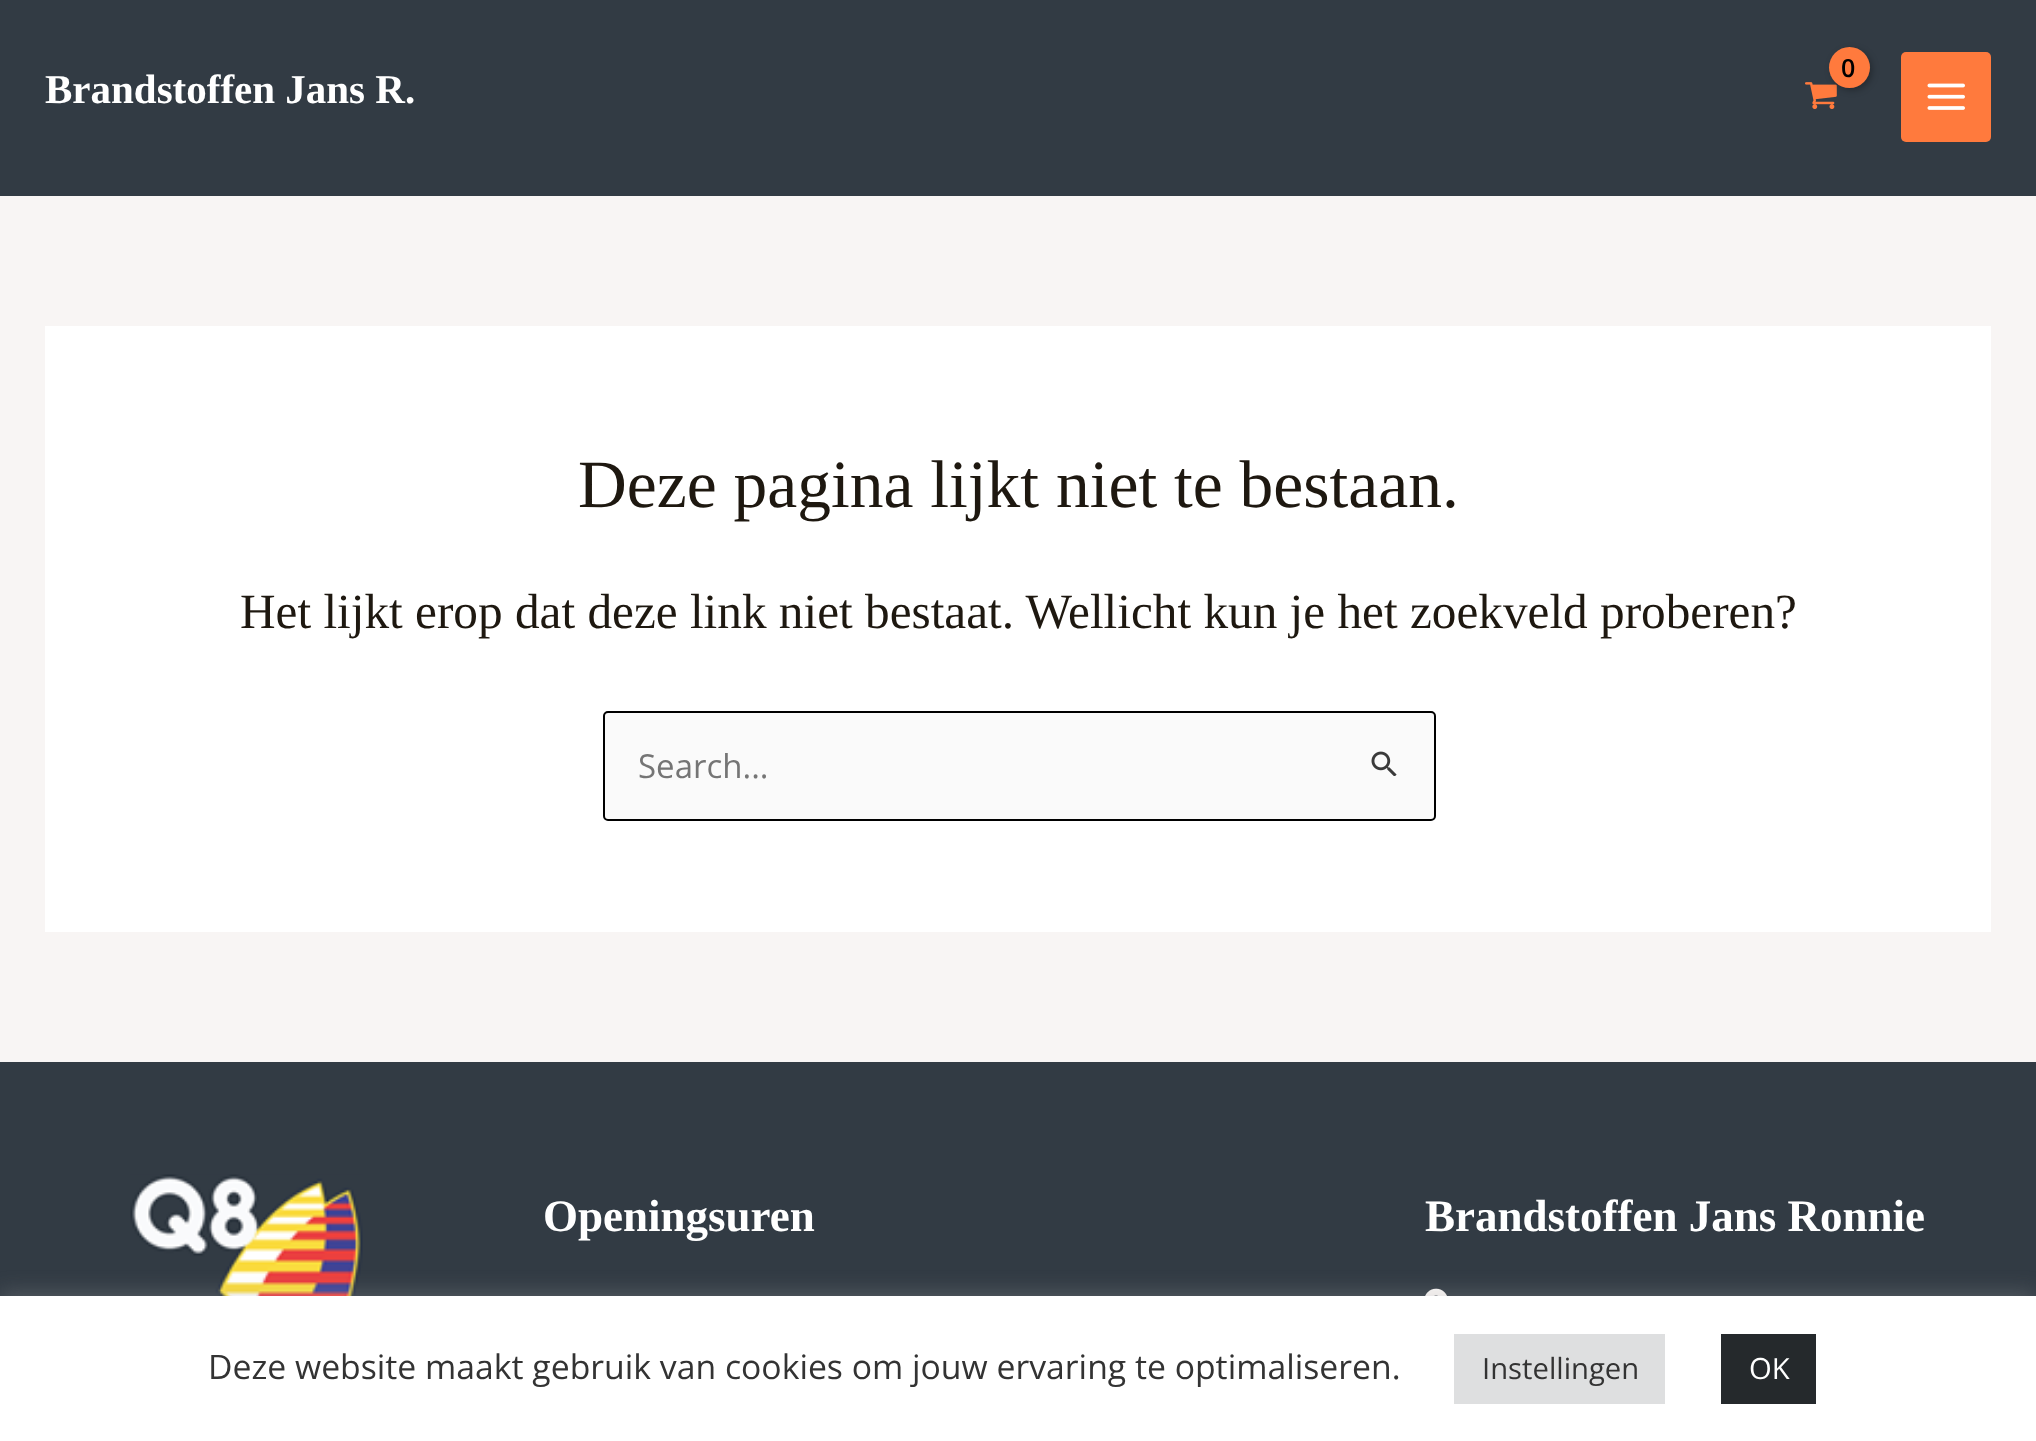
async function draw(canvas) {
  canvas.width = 2036;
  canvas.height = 1441;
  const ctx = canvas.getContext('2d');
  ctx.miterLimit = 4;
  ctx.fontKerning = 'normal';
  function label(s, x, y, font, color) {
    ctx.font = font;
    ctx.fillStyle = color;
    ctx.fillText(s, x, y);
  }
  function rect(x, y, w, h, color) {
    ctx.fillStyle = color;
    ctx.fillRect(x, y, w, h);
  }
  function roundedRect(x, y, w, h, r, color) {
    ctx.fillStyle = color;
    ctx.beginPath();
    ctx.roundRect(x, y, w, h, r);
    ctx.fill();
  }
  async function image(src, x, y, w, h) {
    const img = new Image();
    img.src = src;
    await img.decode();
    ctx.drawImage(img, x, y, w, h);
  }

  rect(0, 0, 2036, 1441, '#f8f5f4');
  rect(0, 0, 2036, 196, '#323b44');
  await image('assets/img1.png', 1805, 82, 32, 28);
  ctx.fillStyle = '#0000004d';
  ctx.filter = 'blur(3.5px)';
  ctx.beginPath();
  ctx.roundRect(1832, 50, 40, 40, 20);
  ctx.fill();
  ctx.filter = 'none';
  ctx.fillStyle = '#ff7a3d';
  ctx.beginPath();
  ctx.arc(1849.5, 67.5, 20.5, 0, 2 * Math.PI);
  ctx.fill();
  ctx.letterSpacing = '-1px';
  label('0', 1841, 77, '600 25px Open Sans', '#000');
  roundedRect(1901, 52, 90, 90, 5, '#ff7a3d');
  await image('assets/img2.png', 1927, 83, 38, 27);
  ctx.letterSpacing = '0px';
  label('Brandstoffen Jans R.', 45, 103, 'bold 41px Liberation Serif', '#fff');
  rect(45, 326, 1946, 606, '#fff');
  label('Deze pagina lijkt niet te bestaan.', 578, 507, '67.5px Liberation Serif', '#1e1810');
  label('Het lijkt erop dat deze link niet bestaat. Wellicht kun je het zoekveld proberen?', 240, 628, '49.25px Liberation Serif', '#1e1810');
  ctx.fillStyle = '#fafafa';
  ctx.beginPath();
  ctx.roundRect(604, 712, 831, 108, 4);
  ctx.fill();
  ctx.strokeStyle = '#000';
  ctx.lineWidth = 2;
  ctx.stroke();
  label('Search...', 638, 778, '33px Open Sans', '#757575');
  await image('assets/img3.png', 1371, 751, 26, 25);
  rect(0, 1062, 2036, 234, '#323b44');
  await image('assets/img4.png', 130, 1174, 233, 122);
  label('Openingsuren', 543, 1231, 'bold 45px Liberation Serif', '#fff');
  label('Brandstoffen Jans Ronnie', 1425, 1231, 'bold 45px Liberation Serif', '#fff');
  await image('assets/img5.png', 1425, 1288, 22, 8);
  ctx.fillStyle = '#acabab4d';
  ctx.filter = 'blur(11px)';
  ctx.beginPath();
  ctx.rect(0, 1294, 2036, 146);
  ctx.fill();
  ctx.filter = 'none';
  rect(0, 1296, 2036, 145, '#fff');
  label('Deze website maakt gebruik van cookies om jouw ervaring te optimaliseren.', 208, 1379, '33.75px Open Sans', '#333');
  rect(1454, 1334, 211, 70, '#dedfe0');
  label('Instellingen', 1482, 1379, '29.25px Open Sans', '#333');
  rect(1721, 1334, 95, 70, '#25292c');
  label('OK', 1749, 1379, '29.25px Open Sans', '#fff');
}

draw(document.querySelector('canvas'));
